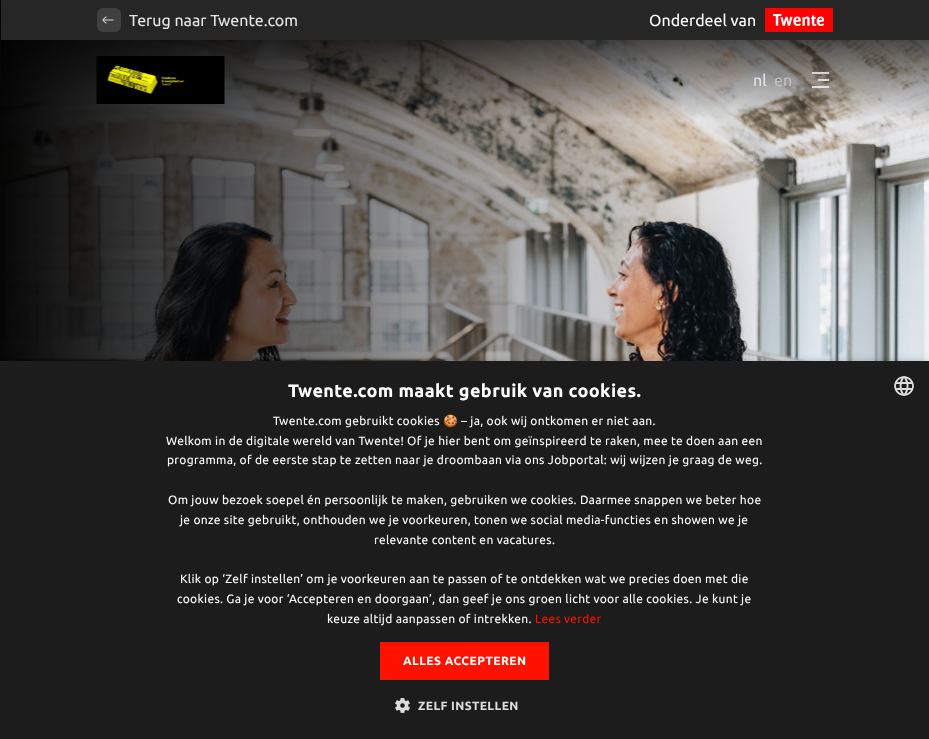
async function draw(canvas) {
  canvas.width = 929;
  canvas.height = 739;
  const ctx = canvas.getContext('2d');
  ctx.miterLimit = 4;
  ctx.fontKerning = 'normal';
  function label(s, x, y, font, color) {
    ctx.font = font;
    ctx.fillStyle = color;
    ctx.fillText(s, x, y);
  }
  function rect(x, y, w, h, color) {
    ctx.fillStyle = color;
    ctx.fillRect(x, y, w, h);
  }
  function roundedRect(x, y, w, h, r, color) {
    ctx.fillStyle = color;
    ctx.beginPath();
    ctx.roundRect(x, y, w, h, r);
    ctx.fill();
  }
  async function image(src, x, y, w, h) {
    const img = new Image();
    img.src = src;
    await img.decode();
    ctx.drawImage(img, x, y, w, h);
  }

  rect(0, 0, 929, 739, '#fff');
  await image('assets/img1.png', 0, 0, 929, 361);
  rect(1, 0, 928, 40, '#262626');
  roundedRect(97, 8, 24, 24, 6, '#404040');
  await image('assets/img2.png', 102, 16, 12, 8);
  label('Terug naar Twente.com', 129, 26, '16px Ubuntu', '#e5e5e5');
  label('Onderdeel van', 649, 26, '16px Ubuntu', '#fff');
  rect(765, 8, 68, 24, '#f00');
  await image('assets/img3.png', 773, 14, 51, 12);
  await image('assets/img4.png', 96, 56, 129, 48);
  label('nl', 753, 86, '16px Ubuntu', '#e5e5e5');
  label('en', 774, 86, '16px Ubuntu', '#c1c1c1');
  await image('assets/img5.png', 811, 72, 19, 16);
  ctx.fillStyle = '#00000059';
  ctx.filter = 'blur(4px)';
  ctx.beginPath();
  ctx.rect(1, 363, 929, 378);
  ctx.fill();
  ctx.filter = 'none';
  rect(0, 361, 929, 378, '#1c1c1c');
  ctx.letterSpacing = '0.4px';
  label('Twente.com maakt gebruik van cookies.', 288, 397, 'bold 18px Ubuntu', '#fff');
  await image('assets/img6.png', 894, 376, 20, 20);
  ctx.letterSpacing = '0.3px';
  label('Twente.com gebruikt cookies', 273, 425, '12px Ubuntu', '#fff');
  label('🍪', 443, 425, '12px Noto Color Emoji', '#fff');
  label('– ja, ook wij ontkomen er niet aan.', 461, 425, '12px Ubuntu', '#fff');
  label('Welkom in de digitale wereld van Twente! Of je hier bent om geïnspireerd te raken, mee te doen aan een', 166, 445, '12px Ubuntu', '#fff');
  label('programma, of de eerste stap te zetten naar je droombaan via ons Jobportal: wij wijzen je graag de weg.', 167, 464, '12px Ubuntu', '#fff');
  label('Om jouw bezoek soepel én persoonlijk te maken, gebruiken we cookies. Daarmee snappen we beter hoe', 168, 504, '12px Ubuntu', '#fff');
  label('je onze site gebruikt, onthouden we je voorkeuren, tonen we social media-functies en showen we je', 180, 524, '12px Ubuntu', '#fff');
  label('relevante content en vacatures.', 374, 544, '12px Ubuntu', '#fff');
  label('Klik op ‘Zelf instellen’ om je voorkeuren aan te passen of te ontdekken wat we precies doen met die', 180, 583, '12px Ubuntu', '#fff');
  label('cookies. Ga je voor ‘Accepteren en doorgaan’, dan geef je ons groen licht voor alle cookies. Je kunt je', 177, 603, '12px Ubuntu', '#fff');
  label('keuze altijd aanpassen of intrekken.', 327, 623, '12px Ubuntu', '#fff');
  label('Lees verder', 535, 623, '12px Ubuntu', '#f10');
  rect(380, 642, 169, 38, '#f10');
  ctx.letterSpacing = '0.4px';
  label('ALLES ACCEPTEREN', 403, 665, 'bold 12px Ubuntu', '#fff');
  await image('assets/img7.png', 395, 698, 15, 15);
  label('ZELF INSTELLEN', 418, 710, 'bold 12px Ubuntu', '#ddd');
}

draw(document.querySelector('canvas'));
